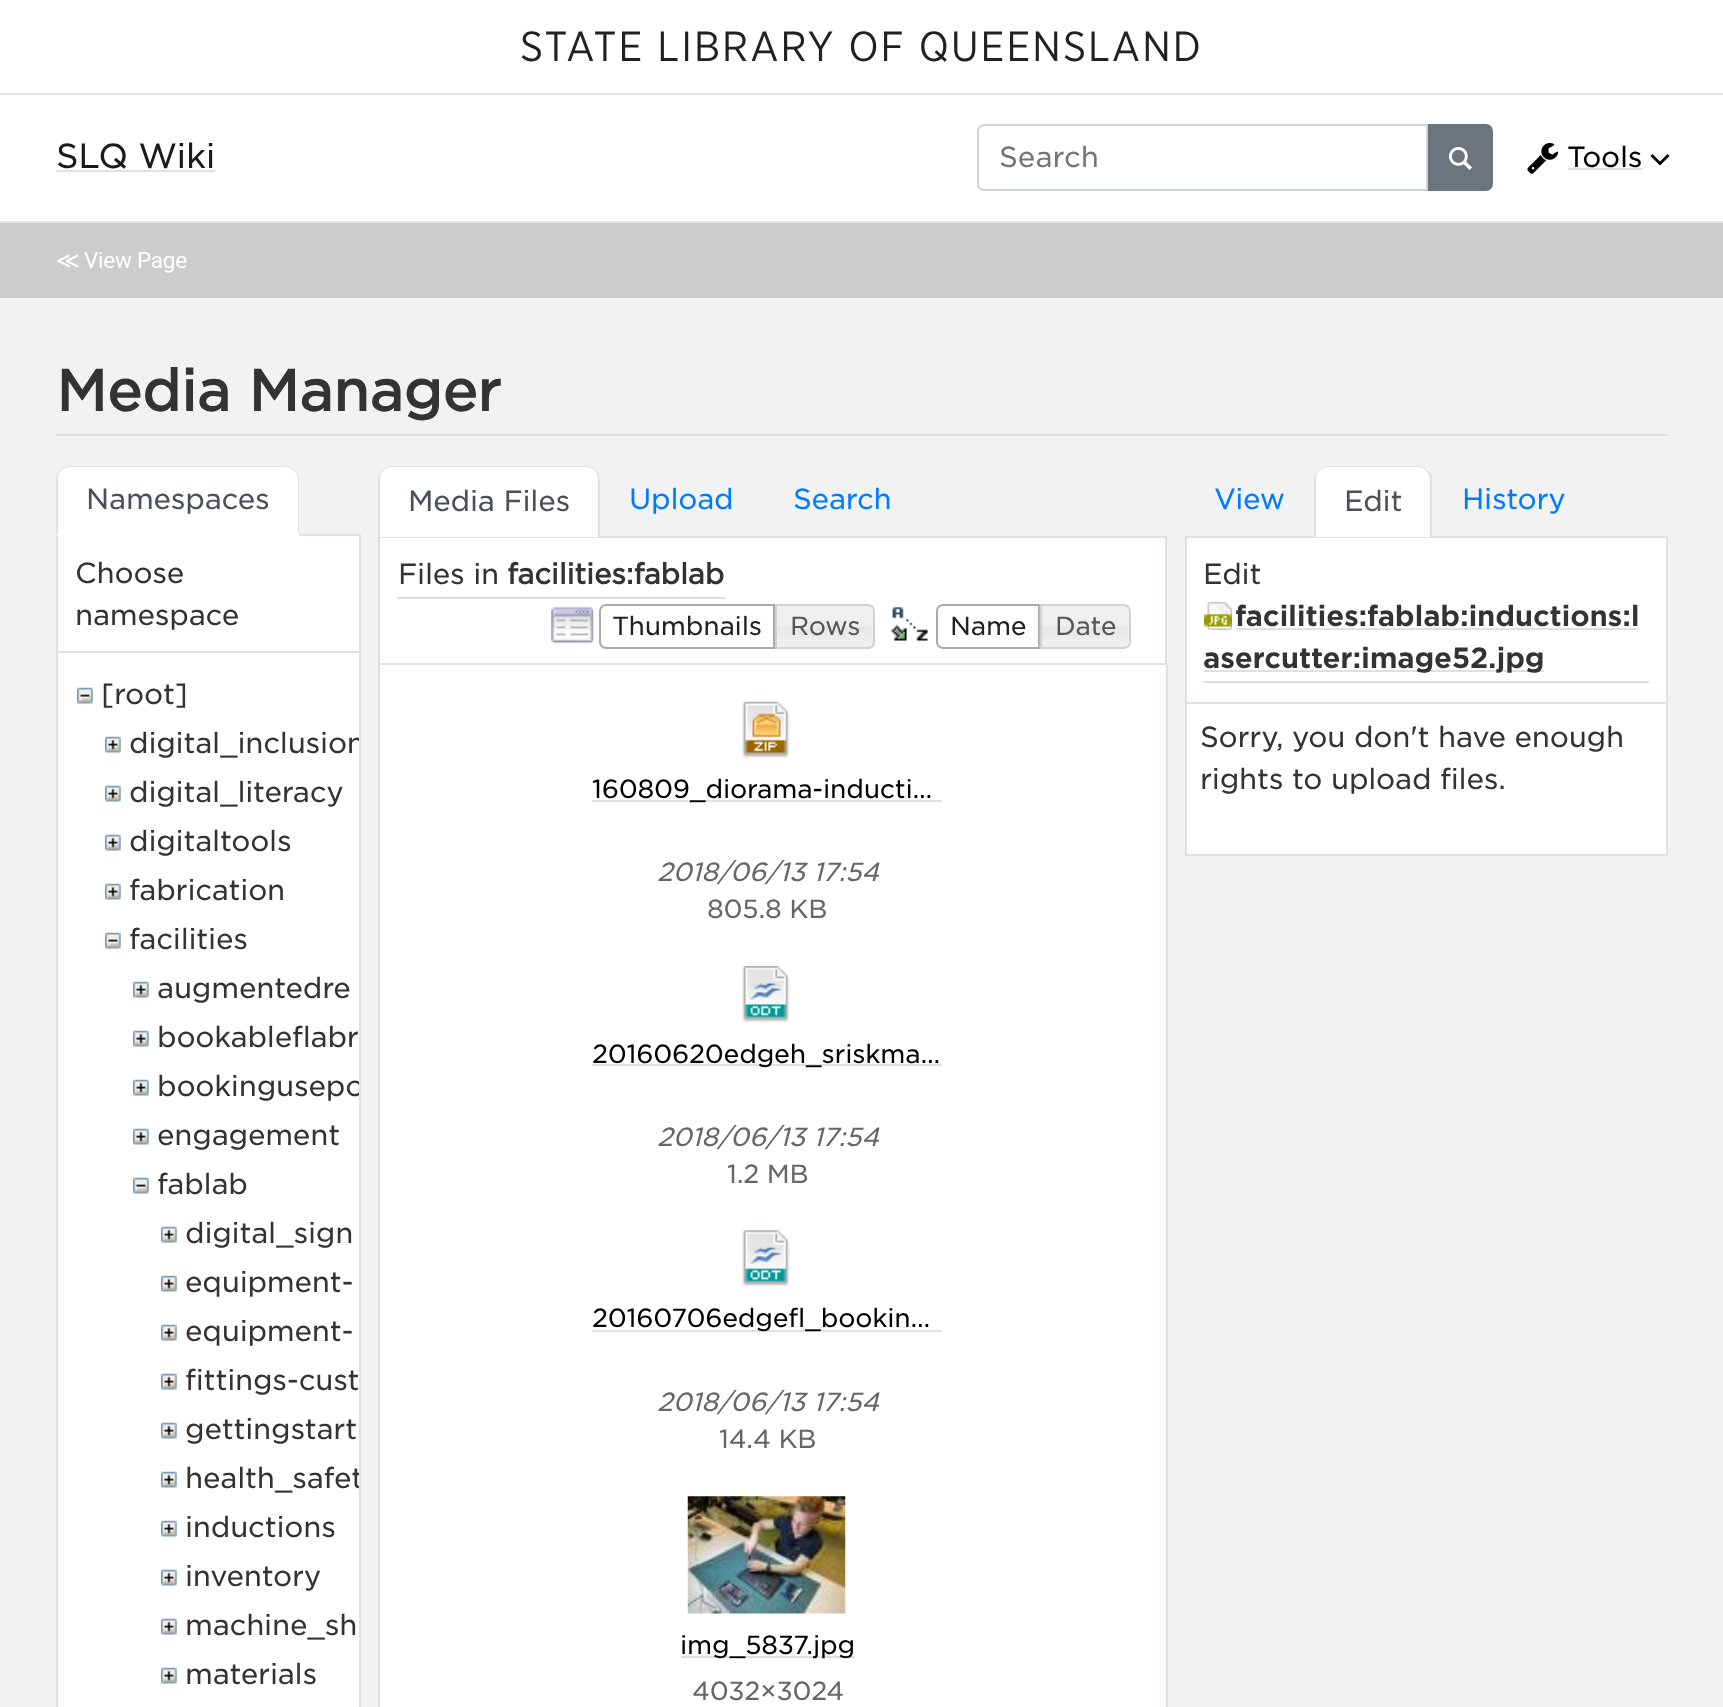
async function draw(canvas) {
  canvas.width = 1723;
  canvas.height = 1707;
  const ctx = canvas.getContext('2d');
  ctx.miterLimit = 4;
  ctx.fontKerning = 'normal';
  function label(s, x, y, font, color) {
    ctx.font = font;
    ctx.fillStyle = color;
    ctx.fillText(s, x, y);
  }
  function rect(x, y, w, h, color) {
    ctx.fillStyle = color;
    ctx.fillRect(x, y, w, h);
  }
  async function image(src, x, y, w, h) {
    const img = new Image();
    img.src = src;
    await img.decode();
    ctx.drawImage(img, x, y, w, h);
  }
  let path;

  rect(0, 0, 1723, 1707, '#fff');
  rect(0, 93, 1723, 2, '#e5e5e5');
  ctx.letterSpacing = '2.1px';
  label('STATE LIBRARY OF QUEENSLAND', 520, 61, '42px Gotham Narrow', '#212121');
  rect(0, 221, 1723, 2, '#e5e5e5');
  ctx.letterSpacing = '-0.25px';
  label('SLQ Wiki', 56, 168, '33.5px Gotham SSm', '#1a1a1a');
  rect(56, 170, 159, 2, '#e0e0e0');
  ctx.beginPath();
  ctx.roundRect(978, 125, 449, 65, [6, 0, 0, 6]);
  ctx.strokeStyle = '#ced4da';
  ctx.lineWidth = 2;
  ctx.stroke();
  ctx.letterSpacing = '0px';
  label('Search', 999, 167, '28px Gotham SSm', '#757575');
  ctx.fillStyle = '#6c757d';
  ctx.beginPath();
  ctx.roundRect(1429, 125, 63, 65, [0, 6, 6, 0]);
  ctx.fill();
  ctx.strokeStyle = '#6c757d';
  ctx.stroke();
  await image('assets/img1.png', 1449, 147, 23, 23);
  ctx.fillStyle = '#000';
  path = new Path2D('M1660 161.5L1667.5 154L1669.5 156L1660 165.5L1650.5 156L1652.5 154Z');
  ctx.fill(path);
  await image('assets/img2.png', 1527, 143, 32, 31);
  ctx.letterSpacing = '-0.25px';
  label('Tools', 1567, 167, '28px Gotham SSm', '#000');
  rect(1568, 168, 75, 2, '#e0e0e0');
  rect(0, 223, 1723, 75, '#ccc');
  label('≪', 56, 268, '22.5px DejaVu Sans', '#fff');
  label('View Page', 84, 268, '22.5px Roboto', '#fff');
  rect(0, 298, 1723, 1409, '#f2f2f2');
  rect(56, 434, 1612, 2, '#ddd');
  label('Media Manager', 56, 411, 'bold 56px Gotham SSm', '#333');
  ctx.fillStyle = '#fff';
  ctx.beginPath();
  ctx.rect(57, 535, 303, 117);
  ctx.fill();
  ctx.strokeStyle = '#dee2e6';
  ctx.stroke();
  ctx.beginPath();
  ctx.roundRect(56, 466, 243, 70, [14, 14, 0, 0]);
  ctx.fill();
  ctx.fillStyle = '#dee2e6';
  path = new Path2D('M70 466C66 466 63 467 60 470L61 471C64 468 66 467 70 467H285C288 467 292 468 294 471L295 470C292 467 289 466 285 466Z');
  ctx.fill(path);
  path = new Path2D('M299 535V480C299 476 297 472 295 470L294 471C296 473 298 476 298 480V534Z');
  ctx.fill(path);
  ctx.fillStyle = '#fff';
  path = new Path2D('M299 536H56L58 534H298Z');
  ctx.fill(path);
  ctx.fillStyle = '#dee2e6';
  path = new Path2D('M56 536L58 534V480C58 476 59 473 61 471L60 470C58 472 56 476 56 480Z');
  ctx.fill(path);
  label('Namespaces', 86, 509, '28px Gotham SSm', '#495057');
  label('Choose', 75, 583, '28px Gotham SSm', '#333');
  label('namespace', 75, 625, '28px Gotham SSm', '#333');
  rect(58, 653, 301, 1054, '#fff');
  rect(359, 653, 2, 1054, '#dee2e6');
  rect(56, 653, 2, 1054, '#dee2e6');
  await image('assets/img3.png', 77, 687, 16, 17);
  label('[root]', 101, 704, '28px Gotham SSm', '#333');
  await image('assets/img4.png', 105, 736, 16, 17);
  ctx.save();
  ctx.beginPath();
  ctx.rect(58, 653, 301, 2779);
  ctx.clip();
  label('digital_inclusion', 129, 753, '28px Gotham SSm', '#333');
  ctx.restore();
  await image('assets/img4.png', 105, 785, 16, 17);
  label('digital_literacy', 129, 802, '28px Gotham SSm', '#333');
  await image('assets/img4.png', 105, 834, 16, 17);
  label('digitaltools', 129, 851, '28px Gotham SSm', '#333');
  await image('assets/img4.png', 105, 883, 16, 17);
  label('fabrication', 129, 900, '28px Gotham SSm', '#333');
  await image('assets/img3.png', 105, 932, 16, 17);
  label('facilities', 129, 949, '28px Gotham SSm', '#333');
  await image('assets/img5.png', 133, 981, 16, 17);
  label('augmentedre', 157, 998, '28px Gotham SSm', '#333');
  await image('assets/img5.png', 133, 1030, 16, 17);
  label('bookableflabr', 157, 1047, '28px Gotham SSm', '#333');
  await image('assets/img5.png', 133, 1079, 16, 17);
  ctx.save();
  ctx.beginPath();
  ctx.rect(58, 653, 301, 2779);
  ctx.clip();
  label('bookingusepo', 157, 1096, '28px Gotham SSm', '#333');
  ctx.restore();
  await image('assets/img5.png', 133, 1128, 16, 17);
  label('engagement', 157, 1145, '28px Gotham SSm', '#333');
  await image('assets/img6.png', 133, 1177, 16, 17);
  label('fablab', 157, 1194, '28px Gotham SSm', '#333');
  await image('assets/img4.png', 161, 1226, 16, 17);
  label('digital_sign', 185, 1243, '28px Gotham SSm', '#333');
  await image('assets/img4.png', 161, 1275, 16, 17);
  label('equipment-', 185, 1292, '28px Gotham SSm', '#333');
  await image('assets/img4.png', 161, 1324, 16, 17);
  label('equipment-', 185, 1341, '28px Gotham SSm', '#333');
  await image('assets/img4.png', 161, 1373, 16, 17);
  label('fittings-cust', 185, 1390, '28px Gotham SSm', '#333');
  await image('assets/img4.png', 161, 1422, 16, 17);
  label('gettingstart', 185, 1439, '28px Gotham SSm', '#333');
  await image('assets/img4.png', 161, 1471, 16, 17);
  ctx.save();
  ctx.beginPath();
  ctx.rect(58, 653, 301, 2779);
  ctx.clip();
  label('health_safet', 185, 1488, '28px Gotham SSm', '#333');
  ctx.restore();
  await image('assets/img4.png', 161, 1520, 16, 17);
  label('inductions', 185, 1537, '28px Gotham SSm', '#333');
  await image('assets/img4.png', 161, 1569, 16, 17);
  label('inventory', 185, 1586, '28px Gotham SSm', '#333');
  await image('assets/img4.png', 161, 1618, 16, 17);
  label('machine_sh', 185, 1635, '28px Gotham SSm', '#333');
  await image('assets/img4.png', 161, 1667, 16, 17);
  label('materials', 185, 1684, '28px Gotham SSm', '#333');
  ctx.fillStyle = '#fff';
  ctx.beginPath();
  ctx.rect(379, 537, 787, 127);
  ctx.fill();
  ctx.stroke();
  ctx.beginPath();
  ctx.roundRect(378, 466, 222, 71, [14, 14, 0, 0]);
  ctx.fill();
  ctx.fillStyle = '#dee2e6';
  path = new Path2D('M392 466C388 466 385 467 382 470L383 471C386 468 388 467 392 467H586C590 467 593 469 595 471L596 470C593 467 590 466 586 466Z');
  ctx.fill(path);
  ctx.save();
  ctx.beginPath();
  ctx.rect(378, 464, 789, 73);
  ctx.clip();
  path = new Path2D('M600 539V480C600 476 598 472 596 470L595 471C597 473 598 477 598 480V537Z');
  ctx.fill(path);
  path = new Path2D('M378 539L380 537V480C380 476 381 473 383 471L382 470C380 472 378 476 378 480Z');
  ctx.fill(path);
  ctx.restore();
  label('Media Files', 408, 511, '28px Gotham SSm', '#495057');
  label('Upload', 629, 509, '28px Gotham SSm', '#007bff');
  label('Search', 793, 509, '28px Gotham SSm', '#007bff');
  rect(397, 597, 328, 2, '#ddd');
  label('Files in', 398, 584, '28px Gotham SSm', '#333');
  label('facilities:fablab', 507, 584, 'bold 28px Gotham SSm', '#333');
  await image('assets/img7.png', 551, 606, 43, 38);
  ctx.beginPath();
  ctx.roundRect(600, 605, 174, 43, [6, 0, 0, 6]);
  ctx.strokeStyle = '#aaa';
  ctx.stroke();
  label('Thumbnails', 612, 635, '25.25px Gotham SSm', '#212121');
  await image('assets/img8.png', 777, 604, 98, 45);
  ctx.beginPath();
  ctx.roundRect(776, 605, 98, 43, [0, 6, 6, 0]);
  ctx.strokeStyle = '#d3d3d3';
  ctx.stroke();
  label('Rows', 790, 635, '25.25px Gotham SSm', '#555');
  await image('assets/img9.png', 890, 606, 38, 35);
  ctx.beginPath();
  ctx.roundRect(937, 605, 102, 43, [6, 0, 0, 6]);
  ctx.strokeStyle = '#aaa';
  ctx.stroke();
  label('Name', 950, 635, '25.25px Gotham SSm', '#212121');
  await image('assets/img10.png', 1039, 604, 91, 45);
  ctx.beginPath();
  ctx.roundRect(1041, 605, 89, 43, [0, 6, 6, 0]);
  ctx.strokeStyle = '#d3d3d3';
  ctx.stroke();
  label('Date', 1055, 635, '25.25px Gotham SSm', '#555');
  rect(380, 665, 786, 1042, '#fff');
  rect(1166, 665, 2, 1042, '#dee2e6');
  rect(378, 665, 2, 1042, '#dee2e6');
  await image('assets/img11.png', 742, 701, 48, 57);
  rect(592, 800, 350, 2, '#e0e0e0');
  label('160809_diorama-inducti…', 592, 798, '25.25px Gotham SSm', '#000');
  label('2018/06/13 17:54', 657, 881, 'italic 25.25px Gotham SSm', '#666');
  label('805.8 KB', 707, 918, '25.25px Gotham SSm', '#666');
  await image('assets/img12.png', 742, 966, 48, 56);
  rect(592, 1064, 350, 2, '#e0e0e0');
  label('20160620edgeh_sriskma…', 592, 1063, '25.25px Gotham SSm', '#000');
  label('2018/06/13 17:54', 657, 1146, 'italic 25.25px Gotham SSm', '#666');
  label('1.2 MB', 727, 1183, '25.25px Gotham SSm', '#666');
  await image('assets/img13.png', 742, 1230, 48, 56);
  rect(592, 1330, 350, 2, '#e0e0e0');
  label('20160706edgefl_bookin…', 592, 1327, '25.25px Gotham SSm', '#000');
  label('2018/06/13 17:54', 657, 1411, 'italic 25.25px Gotham SSm', '#666');
  label('14.4 KB', 719, 1448, '25.25px Gotham SSm', '#666');
  await image('assets/img14.png', 687, 1496, 159, 118);
  rect(681, 1656, 173, 2, '#e0e0e0');
  label('img_5837.jpg', 680, 1654, '25.25px Gotham SSm', '#000');
  label('4032×3024', 692, 1700, '25.25px Gotham SSm', '#666');
  label('View', 1214, 509, '28px Gotham SSm', '#007bff');
  ctx.fillStyle = '#fff';
  ctx.beginPath();
  ctx.rect(1186, 537, 481, 166);
  ctx.fill();
  ctx.strokeStyle = '#dee2e6';
  ctx.stroke();
  ctx.beginPath();
  ctx.roundRect(1314, 466, 118, 71, [14, 14, 0, 0]);
  ctx.fill();
  ctx.fillStyle = '#dee2e6';
  path = new Path2D('M1328 466C1325 466 1321 467 1319 470V471C1322 468 1325 467 1328 467H1418C1421 467 1424 468 1426 471L1427 470C1425 467 1421 466 1418 466Z');
  ctx.fill(path);
  ctx.save();
  ctx.beginPath();
  ctx.rect(1185, 464, 483, 73);
  ctx.clip();
  path = new Path2D('M1427 470C1429 471 1431 474 1432 476V539L1430 537V480C1430 476 1428 473 1426 471Z');
  ctx.fill(path);
  path = new Path2D('M1314 539L1316 537V480C1316 476 1317 473 1319 471V470C1316 472 1315 474 1314 477Z');
  ctx.fill(path);
  ctx.restore();
  label('Edit', 1344, 511, '28px Gotham SSm', '#495057');
  label('History', 1462, 509, '28px Gotham SSm', '#007bff');
  rect(1204, 681, 445, 2, '#ddd');
  label('Edit', 1203, 584, '28px Gotham SSm', '#333');
  await image('assets/img15.png', 1204, 602, 28, 28);
  label('facilities:fablab:inductions:l', 1235, 626, 'bold 28px "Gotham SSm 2"', '#333');
  rect(1236, 628, 402, 2, '#e0e0e0');
  rect(1204, 670, 340, 2, '#e0e0e0');
  label('asercutter:image52.jpg', 1203, 668, 'bold 28px "Gotham SSm 2"', '#333');
  rect(1187, 704, 479, 150, '#fff');
  rect(1666, 704, 2, 152, '#dee2e6');
  rect(1185, 854, 483, 2, '#dee2e6');
  rect(1185, 704, 2, 152, '#dee2e6');
  label('Sorry, you don\'t have enough', 1200, 747, '28px Gotham SSm', '#333');
  label('rights to upload files.', 1200, 789, '28px Gotham SSm', '#333');
}

draw(document.querySelector('canvas'));
